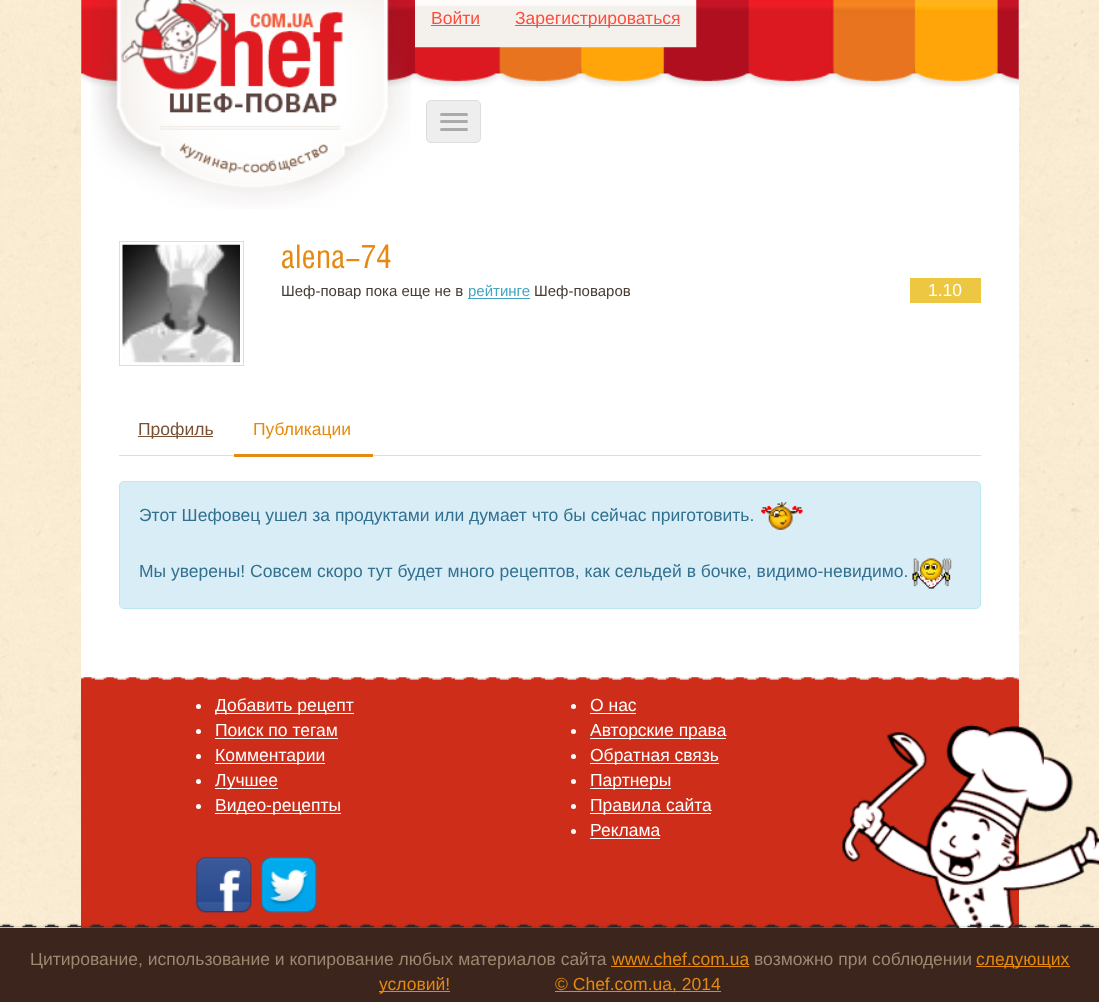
async function draw(canvas) {
  canvas.width = 1099;
  canvas.height = 1002;
  const ctx = canvas.getContext('2d');
  ctx.miterLimit = 4;
  ctx.fontKerning = 'normal';
  function label(s, x, y, font, color) {
    ctx.font = font;
    ctx.fillStyle = color;
    ctx.fillText(s, x, y);
  }
  function rect(x, y, w, h, color) {
    ctx.fillStyle = color;
    ctx.fillRect(x, y, w, h);
  }
  function roundedRect(x, y, w, h, r, color) {
    ctx.fillStyle = color;
    ctx.beginPath();
    ctx.roundRect(x, y, w, h, r);
    ctx.fill();
  }
  async function image(src, x, y, w, h) {
    const img = new Image();
    img.src = src;
    await img.decode();
    ctx.drawImage(img, x, y, w, h);
  }

  rect(0, 0, 1099, 1002, '#fff');
  await image('assets/img1.png', 0, 0, 1099, 928);
  rect(81, 0, 938, 678, '#fff');
  await image('assets/img2.png', 81, 0, 938, 87);
  await image('assets/img3.png', 91, 0, 320, 209);
  await image('assets/img4.png', 415, 0, 282, 48);
  label('Войти', 431, 24, '17.5px Liberation Sans', '#ff4c3e');
  rect(431, 25, 49, 1, '#ff4c3e');
  rect(515, 25, 165, 1, '#ff4c3e');
  label('Зарегистрироваться', 515, 24, '17.5px Liberation Sans', '#ff4c3e');
  ctx.fillStyle = '#eee';
  ctx.beginPath();
  ctx.roundRect(426.5, 100.5, 54, 42, 4.5);
  ctx.fill();
  ctx.strokeStyle = '#ddd';
  ctx.stroke();
  roundedRect(440, 113, 28, 3, 1.5, '#aaa');
  roundedRect(440, 120, 28, 3, 1.5, '#aaa');
  roundedRect(440, 128, 28, 3, 1.5, '#aaa');
  ctx.strokeRect(119.5, 241.5, 124, 124);
  await image('assets/img5.png', 122, 244, 118, 119);
  label('alena-74', 281, 268, '32.5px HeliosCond', '#e58910');
  label('Шеф-повар пока еще не в', 281, 296, '15px Liberation Sans', '#453c34');
  rect(468, 298, 62, 1, '#45a5c1');
  label('рейтинге', 468, 296, '15px Liberation Sans', '#45a5c1');
  label('Шеф-поваров', 534, 296, '15px Liberation Sans', '#453c34');
  rect(910, 278, 71, 25, '#edc742');
  label('1.10', 928, 296, '17.5px Liberation Sans', '#fff');
  rect(119, 455, 862, 1, '#ddd');
  rect(138, 436, 75, 1, '#785134');
  label('Профиль', 138, 435, '17.5px Liberation Sans', '#785134');
  rect(234, 454, 139, 3, '#e58910');
  label('Публикации', 253, 435, '17.5px Liberation Sans', '#e58910');
  ctx.fillStyle = '#d9edf7';
  ctx.beginPath();
  ctx.roundRect(119.5, 481.5, 861, 127, 4.5);
  ctx.fill();
  ctx.strokeStyle = '#bce8f1';
  ctx.stroke();
  label('Этот Шефовец ушел за продуктами или думает что бы сейчас приготовить.', 139, 521, '17.5px Liberation Sans', '#31708f');
  await image('assets/img6.png', 761, 502, 42, 28);
  label('Мы уверены! Совсем скоро тут будет много рецептов, как сельдей в бочке, видимо-невидимо.', 139, 577, '17.5px Liberation Sans', '#31708f');
  await image('assets/img7.png', 912, 558, 40, 31);
  rect(81, 678, 938, 250, '#ce2d19');
  await image('assets/img8.png', 81, 677, 938, 3);
  ctx.fillStyle = '#fff';
  ctx.beginPath();
  ctx.arc(198.5, 706.5, 2.5, 0, 2 * Math.PI);
  ctx.fill();
  rect(215, 713, 139, 1, '#fff');
  label('Добавить рецепт', 215, 711, '17.5px Liberation Sans', '#fff');
  ctx.beginPath();
  ctx.arc(198.5, 731.5, 2.5, 0, 2 * Math.PI);
  ctx.fill();
  label('Поиск по тегам', 215, 736, '17.5px Liberation Sans', '#fff');
  rect(215, 738, 123, 1, '#fff');
  ctx.beginPath();
  ctx.arc(198.5, 756.5, 2.5, 0, 2 * Math.PI);
  ctx.fill();
  rect(215, 763, 110, 1, '#fff');
  label('Комментарии', 215, 761, '17.5px Liberation Sans', '#fff');
  ctx.beginPath();
  ctx.arc(198.5, 781.5, 2.5, 0, 2 * Math.PI);
  ctx.fill();
  rect(215, 788, 63, 1, '#fff');
  label('Лучшее', 215, 786, '17.5px Liberation Sans', '#fff');
  ctx.beginPath();
  ctx.arc(198.5, 806.5, 2.5, 0, 2 * Math.PI);
  ctx.fill();
  rect(215, 813, 126, 1, '#fff');
  label('Видео-рецепты', 215, 811, '17.5px Liberation Sans', '#fff');
  ctx.beginPath();
  ctx.arc(573.5, 706.5, 2.5, 0, 2 * Math.PI);
  ctx.fill();
  label('O нас', 590, 711, '17.5px Liberation Sans', '#fff');
  rect(590, 713, 46, 1, '#fff');
  ctx.beginPath();
  ctx.arc(573.5, 731.5, 2.5, 0, 2 * Math.PI);
  ctx.fill();
  rect(590, 738, 136, 1, '#fff');
  label('Авторские права', 590, 736, '17.5px Liberation Sans', '#fff');
  ctx.beginPath();
  ctx.arc(573.5, 756.5, 2.5, 0, 2 * Math.PI);
  ctx.fill();
  rect(590, 763, 129, 1, '#fff');
  label('Обратная связь', 590, 761, '17.5px Liberation Sans', '#fff');
  ctx.beginPath();
  ctx.arc(573.5, 781.5, 2.5, 0, 2 * Math.PI);
  ctx.fill();
  rect(590, 788, 81, 1, '#fff');
  label('Партнеры', 590, 786, '17.5px Liberation Sans', '#fff');
  ctx.beginPath();
  ctx.arc(573.5, 806.5, 2.5, 0, 2 * Math.PI);
  ctx.fill();
  rect(590, 813, 121, 1, '#fff');
  label('Правила сайта', 590, 811, '17.5px Liberation Sans', '#fff');
  ctx.beginPath();
  ctx.arc(573.5, 831.5, 2.5, 0, 2 * Math.PI);
  ctx.fill();
  label('Реклама', 590, 836, '17.5px Liberation Sans', '#fff');
  rect(590, 838, 70, 1, '#fff');
  await image('assets/img9.png', 196, 857, 56, 56);
  await image('assets/img10.png', 261, 857, 56, 56);
  await image('assets/img11.png', 842, 724, 257, 204);
  rect(0, 928, 1099, 74, '#3c251d');
  await image('assets/img12.png', 0, 923, 1099, 5);
  label('Цитирование, использование и копирование любых материалов сайта', 30, 965, '17.5px Liberation Sans', '#9e876f');
  label('www.chef.com.ua', 612, 965, '17.5px Liberation Sans', '#e58910');
  rect(611, 966, 138, 1, '#e58910');
  label('возможно при соблюдении', 754, 965, '17.5px Liberation Sans', '#9e876f');
  rect(976, 966, 94, 1, '#e58910');
  label('следующих', 976, 965, '17.5px Liberation Sans', '#e58910');
  rect(379, 991, 71, 1, '#e58910');
  label('условий!', 379, 990, '17.5px Liberation Sans', '#e58910');
  rect(555, 991, 166, 1, '#e58910');
  label('© Chef.com.ua, 2014', 555, 990, '17.5px Liberation Sans', '#e58910');
}

draw(document.querySelector('canvas'));
